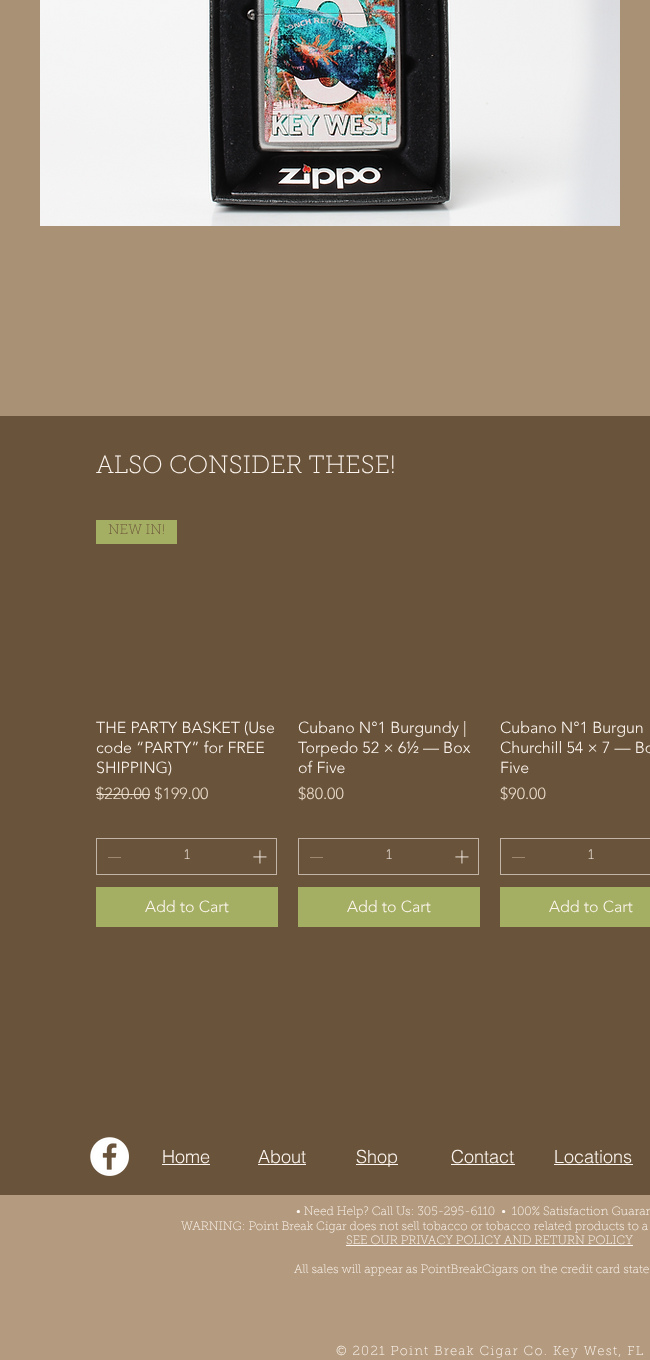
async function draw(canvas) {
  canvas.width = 650;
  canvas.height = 1360;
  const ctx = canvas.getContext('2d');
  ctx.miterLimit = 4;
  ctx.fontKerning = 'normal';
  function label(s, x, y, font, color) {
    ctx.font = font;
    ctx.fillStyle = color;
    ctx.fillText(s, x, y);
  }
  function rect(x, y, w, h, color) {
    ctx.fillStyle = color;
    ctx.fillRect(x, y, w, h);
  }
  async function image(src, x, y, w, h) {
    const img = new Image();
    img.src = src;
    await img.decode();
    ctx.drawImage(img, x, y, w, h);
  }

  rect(0, 0, 650, 1360, '#b49b7f');
  rect(0, 0, 650, 416, '#a99175');
  await image('assets/img1.png', 40, 0, 580, 226);
  rect(0, 416, 650, 779, '#69533a');
  label('ALSO CONSIDER THESE!', 96, 473, '100 25px "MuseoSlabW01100"', '#fdf6f0');
  rect(96, 520, 81, 24, '#a5af63');
  label('NEW IN!', 108, 534, '100 14px "MuseoSlabW01100"', '#69533a');
  label('THE PARTY BASKET (Use', 96, 733, '300 16px "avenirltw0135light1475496"', '#fdf6f0');
  label('code “PARTY” for FREE', 96, 753, '300 16px "avenirltw0135light1475496"', '#fdf6f0');
  label('SHIPPING)', 96, 773, '300 16px "avenirltw0135light1475496"', '#fdf6f0');
  label('$220.00 $199.00', 96, 799, '300 16px "avenirltw0135light1475496"', '#e9dbcb');
  rect(96, 794, 54, 1, '#e9dbcb');
  ctx.strokeStyle = '#c2b5a7';
  ctx.strokeRect(96.5, 838.5, 180, 36);
  rect(108, 857, 13, 1, '#9d8972');
  label('1', 184, 859, '100 14px "MuseoSlabW01100"', '#fdf6f0');
  await image('assets/img2.png', 253, 850, 14, 14);
  rect(96, 887, 182, 40, '#a5af63');
  label('Add to Cart', 145, 912, '300 16px "avenirltw0135light1475496"', '#fdf6f0');
  label('Cubano N°1 Burgundy |', 298, 733, '300 16px "avenirltw0135light1475496"', '#fdf6f0');
  label('Torpedo 52 × 6½ — Box', 298, 753, '300 16px "avenirltw0135light1475496"', '#fdf6f0');
  label('of Five', 298, 773, '300 16px "avenirltw0135light1475496"', '#fdf6f0');
  label('$80.00', 298, 799, '300 16px "avenirltw0135light1475496"', '#e9dbcb');
  ctx.strokeRect(298.5, 838.5, 180, 36);
  rect(310, 857, 13, 1, '#9d8972');
  label('1', 386, 859, '100 14px "MuseoSlabW01100"', '#fdf6f0');
  await image('assets/img2.png', 455, 850, 14, 14);
  rect(298, 887, 182, 40, '#a5af63');
  label('Add to Cart', 347, 912, '300 16px "avenirltw0135light1475496"', '#fdf6f0');
  label('Cubano N°1 Burgun', 500, 733, '300 16px "avenirltw0135light1475496"', '#fdf6f0');
  label('Churchill 54 × 7 — Bo', 500, 753, '300 16px "avenirltw0135light1475496"', '#fdf6f0');
  label('Five', 500, 773, '300 16px "avenirltw0135light1475496"', '#fdf6f0');
  label('$90.00', 500, 799, '300 16px "avenirltw0135light1475496"', '#e9dbcb');
  ctx.strokeRect(500.5, 838.5, 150, 36);
  rect(512, 857, 13, 1, '#9d8972');
  label('1', 588, 859, '100 14px "MuseoSlabW01100"', '#fdf6f0');
  rect(500, 887, 150, 40, '#a5af63');
  label('Add to Cart', 549, 912, '300 16px "avenirltw0135light1475496"', '#fdf6f0');
  await image('assets/img3.png', 90, 1137, 39, 39);
  label('Home', 162, 1163, '300 18px helvetica', '#fdf6f0');
  rect(162, 1164, 48, 1, '#fdf6f0');
  label('About', 258, 1163, '300 18px helvetica', '#fdf6f0');
  rect(258, 1164, 48, 1, '#fdf6f0');
  rect(356, 1164, 42, 1, '#fdf6f0');
  label('Shop', 356, 1163, '300 18px helvetica', '#fdf6f0');
  label('Contact', 451, 1163, '300 18px helvetica', '#fdf6f0');
  rect(451, 1164, 64, 1, '#fdf6f0');
  label('Locations', 554, 1163, '300 18px helvetica', '#fdf6f0');
  rect(554, 1164, 79, 1, '#fdf6f0');
  label('• Need Help? Call Us: 305-295-6110  •  100% Satisfaction Guaran', 296, 1215, '100 12px "MuseoSlabW01100"', '#fdf6f0');
  label('WARNING: Point Break Cigar does not sell tobacco or tobacco related products to a', 181, 1230, '100 12px "MuseoSlabW01100"', '#fdf6f0');
  label('SEE OUR PRIVACY POLICY AND RETURN POLICY', 346, 1244, '100 12px "MuseoSlabW01100"', '#fdf6f0');
  rect(346, 1245, 287, 1, '#fdf6f0');
  label('All sales will appear as PointBreakCigars on the credit card state', 294, 1273, '100 12px "MuseoSlabW01100"', '#fdf6f0');
  ctx.letterSpacing = '1.3px';
  label('© 2021 Point Break Cigar Co.', 336, 1355, '100 13px "MuseoSlabW01100"', '#fdf6f0');
  label('Key West, FL', 553, 1355, '100 13px "MuseoSlabW01100"', '#fdf6f0');
}

draw(document.querySelector('canvas'));
